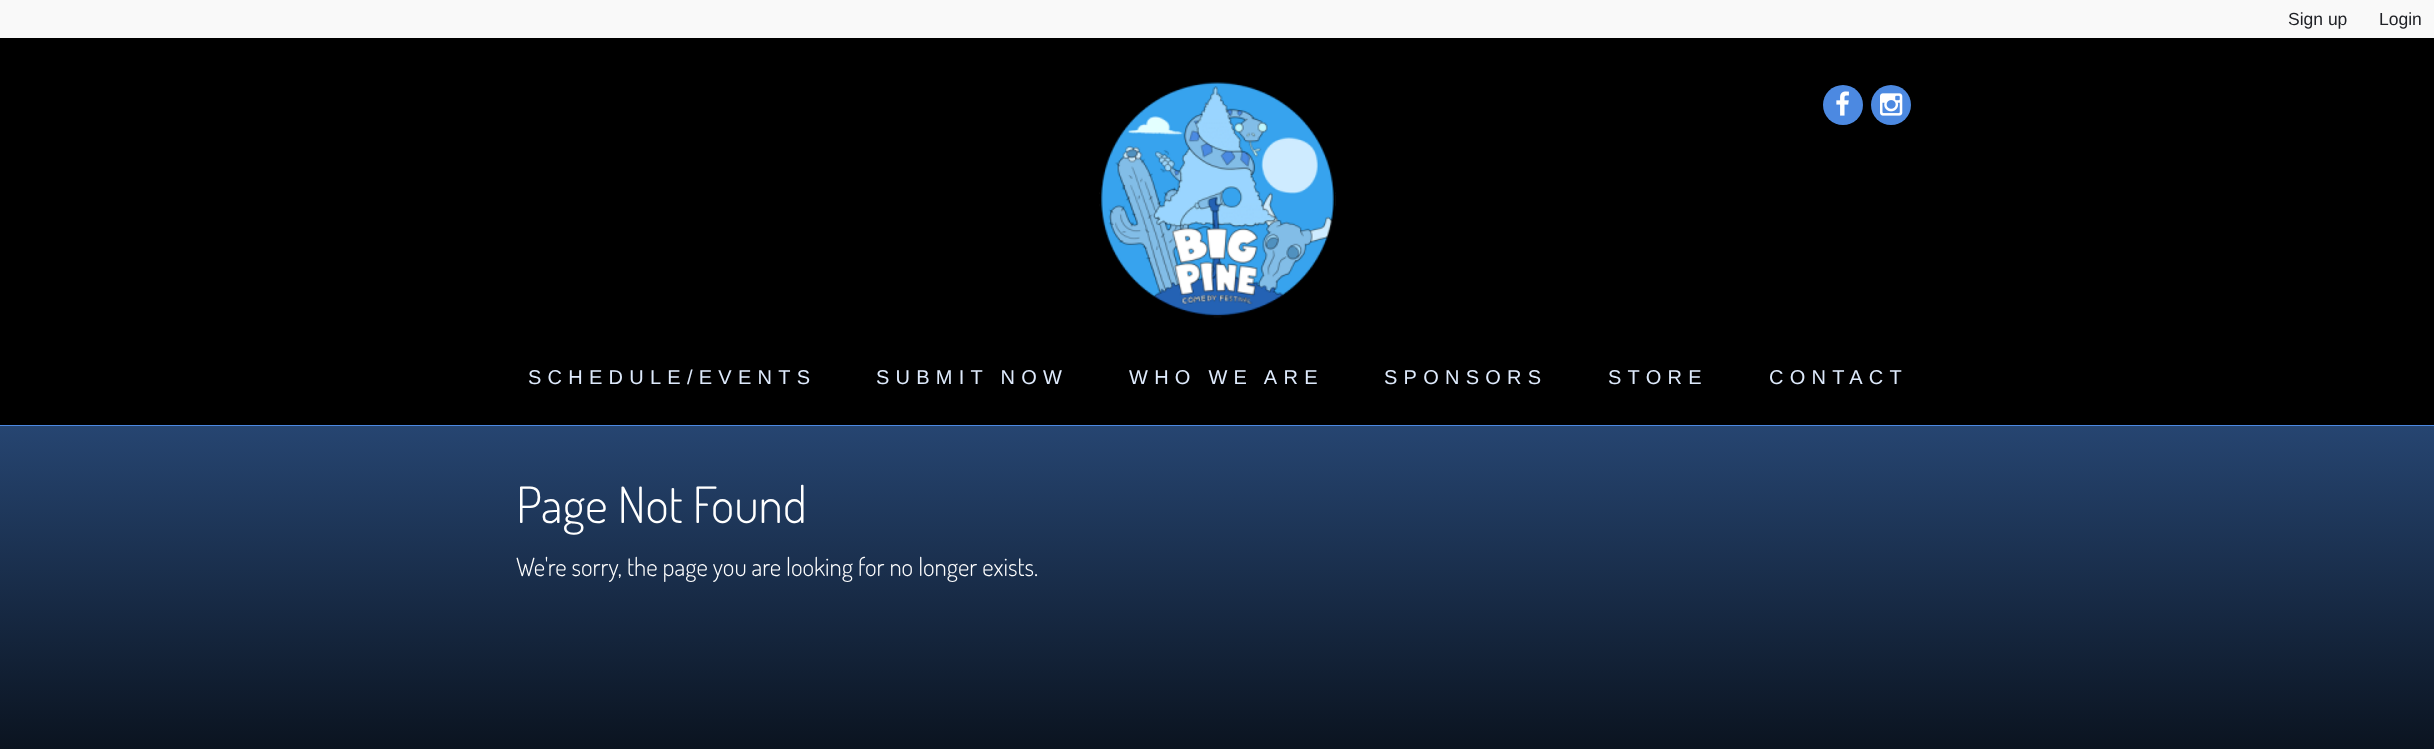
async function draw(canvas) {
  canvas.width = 2434;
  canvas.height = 749;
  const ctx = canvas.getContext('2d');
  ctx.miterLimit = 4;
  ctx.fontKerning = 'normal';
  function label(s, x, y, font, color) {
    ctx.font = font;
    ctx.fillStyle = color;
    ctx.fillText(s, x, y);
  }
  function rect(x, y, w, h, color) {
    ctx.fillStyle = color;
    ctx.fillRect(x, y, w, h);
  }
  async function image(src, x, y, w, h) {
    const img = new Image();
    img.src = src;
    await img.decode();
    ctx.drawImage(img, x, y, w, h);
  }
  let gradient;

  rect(0, 0, 2434, 749, '#000');
  rect(0, 0, 2434, 38, '#f9f9f9');
  label('Sign up', 2288, 25, '17.5px Liberation Sans', '#202227');
  label('Login', 2379, 25, '17.5px Liberation Sans', '#202227');
  await image('assets/img1.png', 1099, 82, 237, 236);
  ctx.fillStyle = '#4c89e1';
  ctx.beginPath();
  ctx.arc(1843, 105, 20, 0, 2 * Math.PI);
  ctx.fill();
  await image('assets/img2.png', 1836, 91, 13, 25);
  ctx.beginPath();
  ctx.arc(1891, 105, 20, 0, 2 * Math.PI);
  ctx.fill();
  await image('assets/img3.png', 1880, 93, 23, 23);
  rect(0, 425, 2434, 1, '#4c89e1');
  ctx.letterSpacing = '6.25px';
  label('SCHEDULE/EVENTS', 528, 384, '20px Liberation Sans', '#deeafc');
  label('SUBMIT NOW', 876, 384, '20px Liberation Sans', '#deeafc');
  label('WHO WE ARE', 1129, 384, '20px Liberation Sans', '#deeafc');
  label('SPONSORS', 1384, 384, '20px Liberation Sans', '#deeafc');
  label('STORE', 1608, 384, '20px Liberation Sans', '#deeafc');
  label('CONTACT', 1769, 384, '20px Liberation Sans', '#deeafc');
  gradient = ctx.createLinearGradient(1218, 426, 1218, 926);
  gradient.addColorStop(0, '#264571');
  gradient.addColorStop(0.9, '#000');
  ctx.fillStyle = gradient;
  ctx.fillRect(0, 426, 2434, 323);
  ctx.letterSpacing = '0px';
  label('Page Not Found', 516, 523, '300 50px Dosis', '#fff');
  label('We\'re sorry, the page you are looking for no longer exists.', 516, 576, '300 25px Dosis', '#fff');
}

draw(document.querySelector('canvas'));
